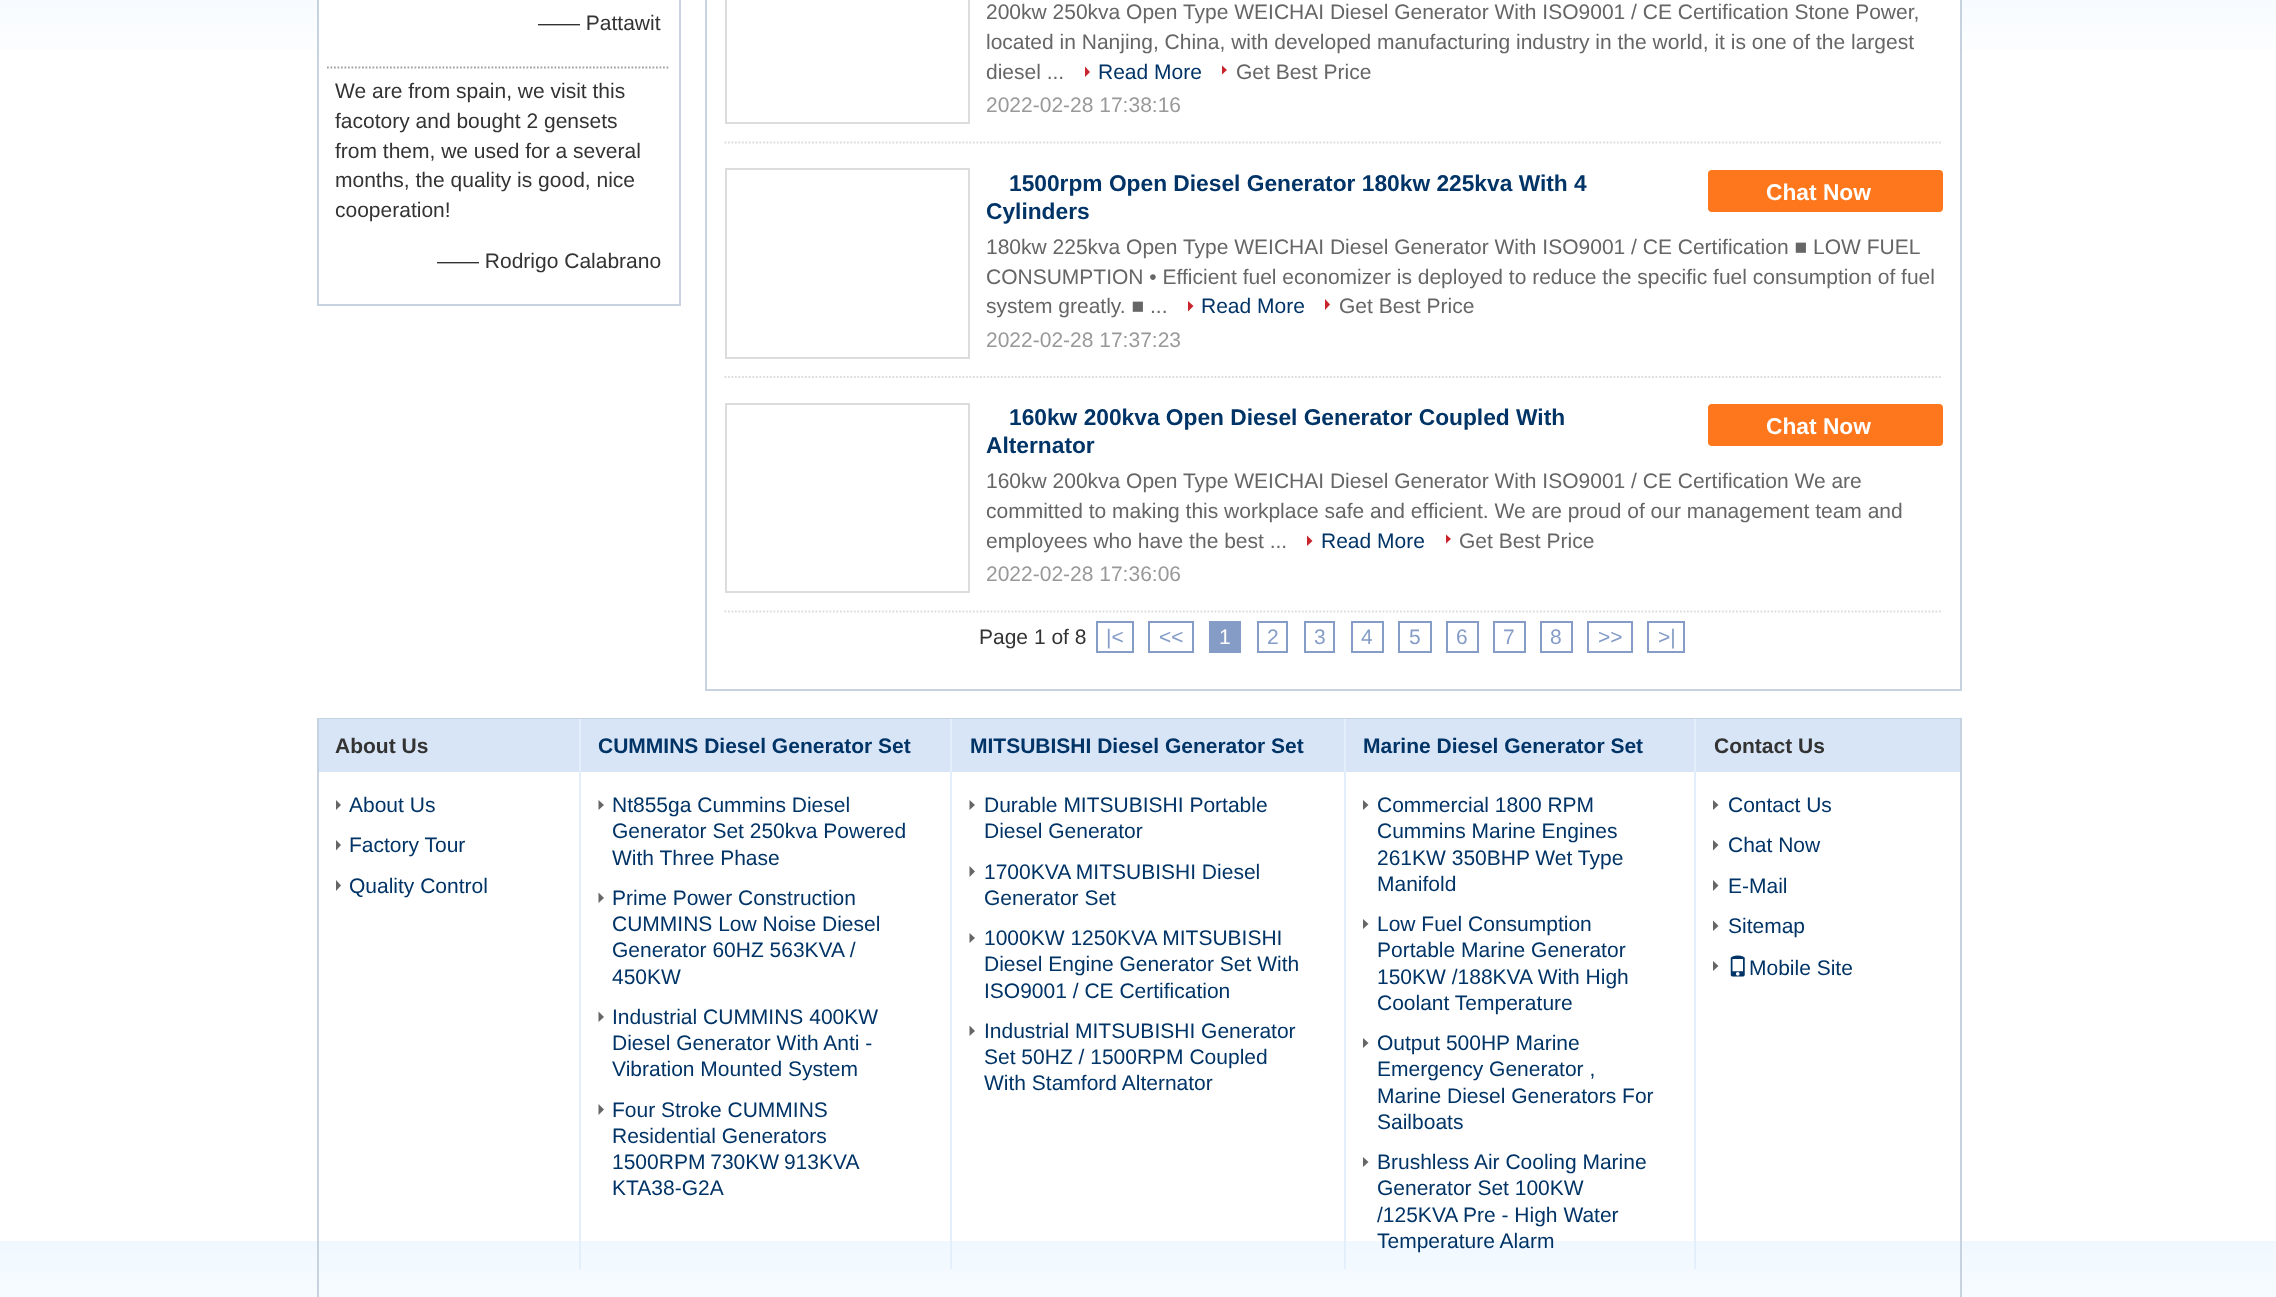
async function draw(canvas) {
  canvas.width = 2276;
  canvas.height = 1297;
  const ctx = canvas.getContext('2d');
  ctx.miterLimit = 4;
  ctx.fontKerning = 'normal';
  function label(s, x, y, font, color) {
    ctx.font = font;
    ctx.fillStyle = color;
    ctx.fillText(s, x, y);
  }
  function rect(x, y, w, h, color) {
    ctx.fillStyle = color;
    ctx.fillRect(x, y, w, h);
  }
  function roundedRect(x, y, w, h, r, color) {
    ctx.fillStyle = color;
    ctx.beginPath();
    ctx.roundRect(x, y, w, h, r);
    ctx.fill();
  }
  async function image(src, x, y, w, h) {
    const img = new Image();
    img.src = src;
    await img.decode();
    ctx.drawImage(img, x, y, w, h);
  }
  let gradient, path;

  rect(0, 0, 2276, 1297, '#fff');
  gradient = ctx.createLinearGradient(1138, -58, 1138, 1241);
  gradient.addColorStop(0, '#f0f8ff');
  gradient.addColorStop(0.1, '#fff');
  gradient.addColorStop(1, '#fff');
  ctx.fillStyle = gradient;
  ctx.fillRect(0, 0, 2276, 50);
  gradient = ctx.createLinearGradient(1138, 1241, 1138, 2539);
  gradient.addColorStop(0, '#f0f8ff');
  gradient.addColorStop(0.1, '#fff');
  gradient.addColorStop(1, '#fff');
  ctx.fillStyle = gradient;
  ctx.fillRect(0, 1241, 2276, 56);
  ctx.fillStyle = '#fff';
  path = new Path2D('M317-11H1962V689C1962 695 1957 700 1951 700H328C322 700 317 695 317 689Z');
  ctx.fill(path);
  ctx.strokeStyle = '#c6d2e0';
  ctx.lineWidth = 2;
  ctx.strokeRect(318, -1, 362, 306);
  path = new Path2D('M327 67.5H670');
  ctx.strokeStyle = '#a2a2a2';
  ctx.lineWidth = 1.8;
  ctx.setLineDash([1.75, 1.75]);
  ctx.stroke(path);
  label('—— Pattawit', 538, 30, '21px Liberation Sans', '#333');
  label('We are from spain, we visit this', 335, 98, '21px Liberation Sans', '#333');
  label('facotory and bought 2 gensets', 335, 128, '21px Liberation Sans', '#333');
  label('from them, we used for a several', 335, 158, '21px Liberation Sans', '#333');
  label('months, the quality is good, nice', 335, 187, '21px Liberation Sans', '#333');
  label('cooperation!', 335, 217, '21px Liberation Sans', '#333');
  label('—— Rodrigo Calabrano', 437, 268, '21px Liberation Sans', '#333');
  ctx.strokeStyle = '#c6d2e0';
  ctx.lineWidth = 2;
  ctx.setLineDash([]);
  ctx.strokeRect(706, -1, 1255, 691);
  path = new Path2D('M724.5 142.5H1942.5');
  ctx.strokeStyle = '#dcdcdc';
  ctx.lineWidth = 1.8;
  ctx.setLineDash([1.75, 1.75]);
  ctx.stroke(path);
  ctx.lineWidth = 2;
  ctx.setLineDash([]);
  ctx.strokeRect(726, -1, 243, 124);
  label('200kw 250kva Open Type WEICHAI Diesel Generator With ISO9001 / CE Certification Stone Power,', 986, 19, '21px Liberation Sans', '#666');
  label('located in Nanjing, China, with developed manufacturing industry in the world, it is one of the largest', 986, 49, '21px Liberation Sans', '#666');
  label('diesel ...', 986, 79, '21px Liberation Sans', '#666');
  ctx.fillStyle = '#c9242b';
  path = new Path2D('M1085 77V66.5L1090 72Z');
  ctx.fill(path);
  label('Read More', 1098, 79, '21px Liberation Sans', '#036');
  ctx.save();
  ctx.beginPath();
  ctx.rect(1222, 58, 150, 30);
  ctx.clip();
  ctx.fillStyle = '#c9242b';
  path = new Path2D('M1221.5 75V65L1227 70Z');
  ctx.fill(path);
  ctx.restore();
  label('Get Best Price', 1236, 79, '21px Liberation Sans', '#666');
  label('2022-02-28 17:38:16', 986, 112, '21px Liberation Sans', '#999');
  path = new Path2D('M724.5 377H1942.5');
  ctx.lineWidth = 1.8;
  ctx.setLineDash([1.75, 1.75]);
  ctx.stroke(path);
  ctx.lineWidth = 2;
  ctx.setLineDash([]);
  ctx.strokeRect(726, 169, 243, 189);
  label('1500rpm Open Diesel Generator 180kw 225kva With 4', 1009, 191, 'bold 22.75px Liberation Sans', '#036');
  roundedRect(1708, 170, 235, 42, 4, '#ff771c');
  label('Chat Now', 1766, 200, 'bold 22.75px Liberation Sans', '#fff');
  label('Cylinders', 986, 219, 'bold 22.75px Liberation Sans', '#036');
  label('180kw 225kva Open Type WEICHAI Diesel Generator With ISO9001 / CE Certification ■ LOW FUEL', 986, 254, '21px Liberation Sans', '#666');
  label('CONSUMPTION • Efficient fuel economizer is deployed to reduce the specific fuel consumption of fuel', 986, 284, '21px Liberation Sans', '#666');
  label('system greatly. ■ ...', 986, 313, '21px Liberation Sans', '#666');
  ctx.fillStyle = '#c9242b';
  path = new Path2D('M1188 311.5V301L1193.5 306Z');
  ctx.fill(path);
  label('Read More', 1201, 313, '21px Liberation Sans', '#036');
  ctx.fillStyle = '#c9242b';
  path = new Path2D('M1325 310V299L1330 304.5Z');
  ctx.fill(path);
  label('Get Best Price', 1339, 313, '21px Liberation Sans', '#666');
  label('2022-02-28 17:37:23', 986, 347, '21px Liberation Sans', '#999');
  path = new Path2D('M724.5 611.5H1942.5');
  ctx.lineWidth = 1.8;
  ctx.setLineDash([1.75, 1.75]);
  ctx.stroke(path);
  ctx.lineWidth = 2;
  ctx.setLineDash([]);
  ctx.strokeRect(726, 404, 243, 188);
  label('160kw 200kva Open Diesel Generator Coupled With', 1009, 425, 'bold 22.75px Liberation Sans', '#036');
  roundedRect(1708, 404, 235, 42, 4, '#ff771c');
  label('Chat Now', 1766, 434, 'bold 22.75px Liberation Sans', '#fff');
  label('Alternator', 986, 453, 'bold 22.75px Liberation Sans', '#036');
  label('160kw 200kva Open Type WEICHAI Diesel Generator With ISO9001 / CE Certification We are', 986, 488, '21px Liberation Sans', '#666');
  label('committed to making this workplace safe and efficient. We are proud of our management team and', 986, 518, '21px Liberation Sans', '#666');
  label('employees who have the best ...', 986, 548, '21px Liberation Sans', '#666');
  ctx.fillStyle = '#c9242b';
  path = new Path2D('M1307 546V535.5L1312.5 541Z');
  ctx.fill(path);
  label('Read More', 1321, 548, '21px Liberation Sans', '#036');
  ctx.save();
  ctx.beginPath();
  ctx.rect(1446, 527, 148, 30);
  ctx.clip();
  ctx.fillStyle = '#c9242b';
  path = new Path2D('M1445.5 544V534L1451 539Z');
  ctx.fill(path);
  ctx.restore();
  label('Get Best Price', 1459, 548, '21px Liberation Sans', '#666');
  label('2022-02-28 17:36:06', 986, 581, '21px Liberation Sans', '#999');
  label('Page 1 of 8', 979, 644, '21px Liberation Sans', '#333');
  ctx.strokeStyle = '#849cc6';
  ctx.strokeRect(1097, 622, 36, 30);
  label('|<', 1106, 644, '21px Liberation Sans', '#849cc6');
  ctx.strokeRect(1149, 622, 44, 30);
  label('<<', 1159, 644, '21px Liberation Sans', '#849cc6');
  rect(1209, 621, 32, 32, '#849cc6');
  label('1', 1219, 644, '21px Liberation Sans', '#fff');
  ctx.strokeRect(1258, 622, 29, 30);
  label('2', 1267, 644, '21px Liberation Sans', '#849cc6');
  ctx.strokeRect(1305, 622, 29, 30);
  label('3', 1314, 644, '21px Liberation Sans', '#849cc6');
  ctx.strokeRect(1352, 622, 31, 30);
  label('4', 1361, 644, '21px Liberation Sans', '#849cc6');
  ctx.strokeRect(1399, 622, 32, 30);
  label('5', 1409, 644, '21px Liberation Sans', '#849cc6');
  ctx.strokeRect(1447, 622, 31, 30);
  label('6', 1456, 644, '21px Liberation Sans', '#849cc6');
  ctx.strokeRect(1494, 622, 31, 30);
  label('7', 1503, 644, '21px Liberation Sans', '#849cc6');
  ctx.strokeRect(1541, 622, 31, 30);
  label('8', 1550, 644, '21px Liberation Sans', '#849cc6');
  ctx.strokeRect(1588, 622, 44, 30);
  label('>>', 1598, 644, '21px Liberation Sans', '#849cc6');
  ctx.strokeRect(1648, 622, 36, 30);
  label('>|', 1658, 644, '21px Liberation Sans', '#849cc6');
  ctx.strokeStyle = '#c6d2e0';
  ctx.strokeRect(318, 719, 1643, 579);
  rect(579, 719, 2, 550, '#e4effc');
  rect(319, 719, 260, 53, '#d8e5f6');
  label('About Us', 335, 753, 'bold 21px Liberation Sans', '#333');
  ctx.fillStyle = '#666';
  path = new Path2D('M336 810V800L341 805Z');
  ctx.fill(path);
  label('About Us', 349, 812, '21px Liberation Sans', '#036');
  ctx.fillStyle = '#666';
  path = new Path2D('M336 850.5V840L341 845Z');
  ctx.fill(path);
  label('Factory Tour', 349, 852, '21px Liberation Sans', '#036');
  ctx.fillStyle = '#666';
  path = new Path2D('M336 891V880L341 885.5Z');
  ctx.fill(path);
  label('Quality Control', 349, 893, '21px Liberation Sans', '#036');
  rect(950, 719, 2, 550, '#e4effc');
  rect(581, 719, 369, 53, '#d8e5f6');
  label('CUMMINS Diesel Generator Set', 598, 753, 'bold 21px Liberation Sans', '#036');
  ctx.fillStyle = '#666';
  path = new Path2D('M598.5 810V800L604 805Z');
  ctx.fill(path);
  label('Nt855ga Cummins Diesel', 612, 812, '21px Liberation Sans', '#036');
  label('Generator Set 250kva Powered', 612, 838, '21px Liberation Sans', '#036');
  label('With Three Phase', 612, 865, '21px Liberation Sans', '#036');
  ctx.fillStyle = '#666';
  path = new Path2D('M598.5 903V892.5L604 898Z');
  ctx.fill(path);
  label('Prime Power Construction', 612, 905, '21px Liberation Sans', '#036');
  label('CUMMINS Low Noise Diesel', 612, 931, '21px Liberation Sans', '#036');
  label('Generator 60HZ 563KVA /', 612, 957, '21px Liberation Sans', '#036');
  label('450KW', 612, 984, '21px Liberation Sans', '#036');
  ctx.fillStyle = '#666';
  path = new Path2D('M598.5 1022V1011.5L604 1017Z');
  ctx.fill(path);
  label('Industrial CUMMINS 400KW', 612, 1024, '21px Liberation Sans', '#036');
  label('Diesel Generator With Anti -', 612, 1050, '21px Liberation Sans', '#036');
  label('Vibration Mounted System', 612, 1076, '21px Liberation Sans', '#036');
  ctx.fillStyle = '#666';
  path = new Path2D('M598.5 1115V1104L604 1109.5Z');
  ctx.fill(path);
  label('Four Stroke CUMMINS', 612, 1117, '21px Liberation Sans', '#036');
  label('Residential Generators', 612, 1143, '21px Liberation Sans', '#036');
  ctx.wordSpacing = '-1px';
  label('1500RPM 730KW 913KVA', 612, 1169, '21px Liberation Sans', '#036');
  ctx.wordSpacing = '0px';
  label('KTA38-G2A', 612, 1195, '21px Liberation Sans', '#036');
  rect(1344, 719, 2, 550, '#e4effc');
  rect(952, 719, 392, 53, '#d8e5f6');
  label('MITSUBISHI Diesel Generator Set', 970, 753, 'bold 21px Liberation Sans', '#036');
  ctx.fillStyle = '#666';
  path = new Path2D('M969.5 810V800L975 805Z');
  ctx.fill(path);
  label('Durable MITSUBISHI Portable', 984, 812, '21px Liberation Sans', '#036');
  label('Diesel Generator', 984, 838, '21px Liberation Sans', '#036');
  ctx.fillStyle = '#666';
  path = new Path2D('M969.5 877V866L975 871.5Z');
  ctx.fill(path);
  label('1700KVA MITSUBISHI Diesel', 984, 879, '21px Liberation Sans', '#036');
  label('Generator Set', 984, 905, '21px Liberation Sans', '#036');
  ctx.fillStyle = '#666';
  path = new Path2D('M969.5 943V933L975 938Z');
  ctx.fill(path);
  label('1000KW 1250KVA MITSUBISHI', 984, 945, '21px Liberation Sans', '#036');
  label('Diesel Engine Generator Set With', 984, 971, '21px Liberation Sans', '#036');
  label('ISO9001 / CE Certification', 984, 998, '21px Liberation Sans', '#036');
  ctx.fillStyle = '#666';
  path = new Path2D('M969.5 1036V1025.5L975 1031Z');
  ctx.fill(path);
  label('Industrial MITSUBISHI Generator', 984, 1038, '21px Liberation Sans', '#036');
  label('Set 50HZ / 1500RPM Coupled', 984, 1064, '21px Liberation Sans', '#036');
  label('With Stamford Alternator', 984, 1090, '21px Liberation Sans', '#036');
  rect(1694, 719, 2, 550, '#e4effc');
  rect(1346, 719, 348, 53, '#d8e5f6');
  label('Marine Diesel Generator Set', 1363, 753, 'bold 21px Liberation Sans', '#036');
  ctx.fillStyle = '#666';
  path = new Path2D('M1363 810V800L1368.5 805Z');
  ctx.fill(path);
  label('Commercial 1800 RPM', 1377, 812, '21px Liberation Sans', '#036');
  label('Cummins Marine Engines', 1377, 838, '21px Liberation Sans', '#036');
  label('261KW 350BHP Wet Type', 1377, 865, '21px Liberation Sans', '#036');
  label('Manifold', 1377, 891, '21px Liberation Sans', '#036');
  ctx.fillStyle = '#666';
  path = new Path2D('M1363 929V919L1368.5 924Z');
  ctx.fill(path);
  label('Low Fuel Consumption', 1377, 931, '21px Liberation Sans', '#036');
  label('Portable Marine Generator', 1377, 957, '21px Liberation Sans', '#036');
  label('150KW /188KVA With High', 1377, 984, '21px Liberation Sans', '#036');
  label('Coolant Temperature', 1377, 1010, '21px Liberation Sans', '#036');
  ctx.fillStyle = '#666';
  path = new Path2D('M1363 1048V1038L1368.5 1043Z');
  ctx.fill(path);
  label('Output 500HP Marine', 1377, 1050, '21px Liberation Sans', '#036');
  label('Emergency Generator ,', 1377, 1076, '21px Liberation Sans', '#036');
  label('Marine Diesel Generators For', 1377, 1103, '21px Liberation Sans', '#036');
  label('Sailboats', 1377, 1129, '21px Liberation Sans', '#036');
  ctx.fillStyle = '#666';
  path = new Path2D('M1363 1167V1157L1368.5 1162Z');
  ctx.fill(path);
  label('Brushless Air Cooling Marine', 1377, 1169, '21px Liberation Sans', '#036');
  label('Generator Set 100KW', 1377, 1195, '21px Liberation Sans', '#036');
  label('/125KVA Pre - High Water', 1377, 1222, '21px Liberation Sans', '#036');
  label('Temperature Alarm', 1377, 1248, '21px Liberation Sans', '#036');
  rect(1696, 719, 264, 53, '#d8e5f6');
  label('Contact Us', 1714, 753, 'bold 21px Liberation Sans', '#333');
  ctx.fillStyle = '#666';
  path = new Path2D('M1713 810V800L1718.5 805Z');
  ctx.fill(path);
  label('Contact Us', 1728, 812, '21px Liberation Sans', '#036');
  ctx.fillStyle = '#666';
  path = new Path2D('M1713 850.5V840L1718.5 845Z');
  ctx.fill(path);
  label('Chat Now', 1728, 852, '21px Liberation Sans', '#036');
  ctx.fillStyle = '#666';
  path = new Path2D('M1713 891V880L1718.5 885.5Z');
  ctx.fill(path);
  label('E-Mail', 1728, 893, '21px Liberation Sans', '#036');
  ctx.fillStyle = '#666';
  path = new Path2D('M1713 931V920.5L1718.5 926Z');
  ctx.fill(path);
  label('Sitemap', 1728, 933, '21px Liberation Sans', '#036');
  ctx.fillStyle = '#666';
  path = new Path2D('M1713 971V961L1718.5 966Z');
  ctx.fill(path);
  await image('assets/img1.png', 1730, 955, 15, 22);
  label('Mobile Site', 1749, 975, '21px Liberation Sans', '#036');
}

draw(document.querySelector('canvas'));
